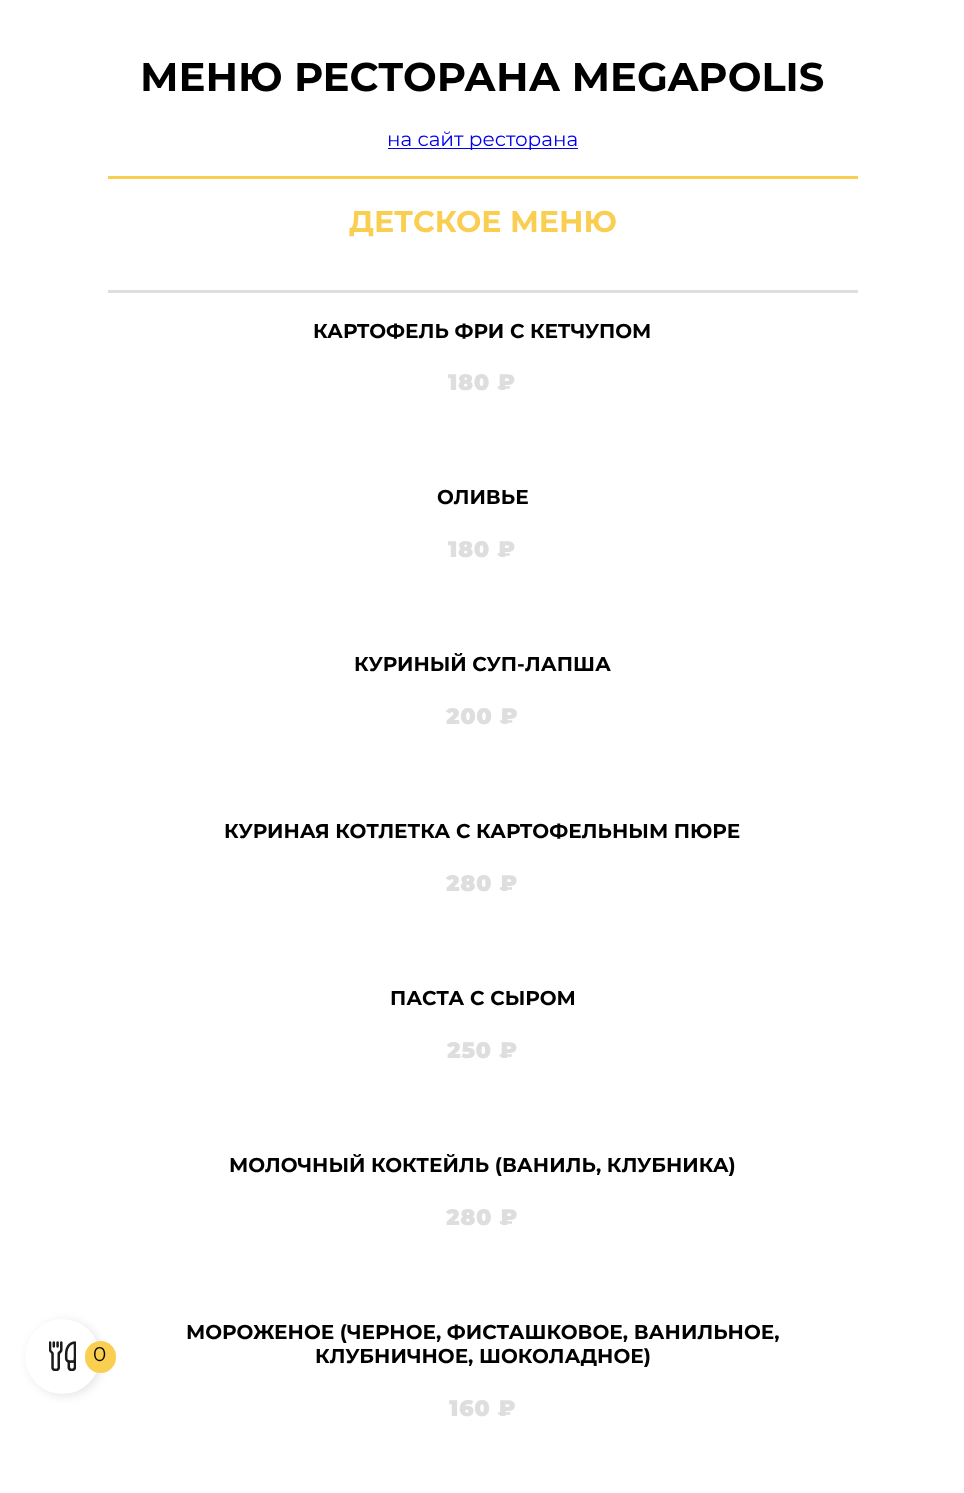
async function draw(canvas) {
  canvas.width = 964;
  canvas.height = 1493;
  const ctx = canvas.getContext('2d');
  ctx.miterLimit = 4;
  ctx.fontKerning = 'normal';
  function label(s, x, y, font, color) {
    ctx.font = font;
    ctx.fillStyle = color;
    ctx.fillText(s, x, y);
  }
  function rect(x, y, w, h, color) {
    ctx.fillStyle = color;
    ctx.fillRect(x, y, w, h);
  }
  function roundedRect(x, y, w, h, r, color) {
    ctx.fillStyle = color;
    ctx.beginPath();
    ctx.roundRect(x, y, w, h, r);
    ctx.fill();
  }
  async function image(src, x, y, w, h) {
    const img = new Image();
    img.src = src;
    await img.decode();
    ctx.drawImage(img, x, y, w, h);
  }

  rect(0, 0, 964, 1493, '#fff');
  label('МЕНЮ РЕСТОРАНА MEGAPOLIS', 140, 91, 'bold 40px Montserrat', '#000');
  rect(388, 148, 190, 1, '#00e');
  label('на сайт ресторана', 387, 146, '20px Montserrat', '#00e');
  ctx.fillStyle = '#1000001a';
  ctx.filter = 'blur(5px)';
  ctx.beginPath();
  ctx.roundRect(28, 1321, 75, 75, 37.5);
  ctx.fill();
  ctx.filter = 'none';
  ctx.fillStyle = '#fff';
  ctx.beginPath();
  ctx.arc(62.5, 1356.5, 37.5, 0, 2 * Math.PI);
  ctx.fill();
  await image('assets/img1.png', 49, 1341, 27, 30);
  roundedRect(85, 1341, 31, 32, 15.5, '#face51');
  label('0', 93, 1361, '20px Montserrat', '#000');
  rect(108, 176, 750, 3, '#face51');
  label('ДЕТСКОЕ МЕНЮ', 349, 232, 'bold 30px Montserrat', '#face51');
  rect(108, 290, 750, 3, '#dedede');
  label('КАРТОФЕЛЬ ФРИ С КЕТЧУПОМ', 313, 338, 'bold 20px Montserrat', '#000');
  ctx.letterSpacing = '0.5px';
  label('180 ₽', 448, 390, '900 22.5px Montserrat', '#dedede');
  ctx.letterSpacing = '0px';
  label('ОЛИВЬЕ', 437, 504, 'bold 20px Montserrat', '#000');
  ctx.letterSpacing = '0.5px';
  label('180 ₽', 448, 557, '900 22.5px Montserrat', '#dedede');
  ctx.letterSpacing = '0px';
  label('КУРИНЫЙ СУП-ЛАПША', 354, 671, 'bold 20px Montserrat', '#000');
  ctx.letterSpacing = '0.5px';
  label('200 ₽', 446, 724, '900 22.5px Montserrat', '#dedede');
  ctx.letterSpacing = '0px';
  label('КУРИНАЯ КОТЛЕТКА С КАРТОФЕЛЬНЫМ ПЮРЕ', 224, 838, 'bold 20px Montserrat', '#000');
  ctx.letterSpacing = '0.5px';
  label('280 ₽', 446, 891, '900 22.5px Montserrat', '#dedede');
  ctx.letterSpacing = '0px';
  label('ПАСТА С СЫРОМ', 390, 1005, 'bold 20px Montserrat', '#000');
  ctx.letterSpacing = '0.5px';
  label('250 ₽', 447, 1058, '900 22.5px Montserrat', '#dedede');
  ctx.letterSpacing = '0px';
  label('МОЛОЧНЫЙ КОКТЕЙЛЬ (ВАНИЛЬ, КЛУБНИКА)', 229, 1172, 'bold 20px Montserrat', '#000');
  ctx.letterSpacing = '0.5px';
  label('280 ₽', 446, 1225, '900 22.5px Montserrat', '#dedede');
  ctx.letterSpacing = '0px';
  label('МОРОЖЕНОЕ (ЧЕРНОЕ, ФИСТАШКОВОЕ, ВАНИЛЬНОЕ,', 186, 1339, 'bold 20px Montserrat', '#000');
  label('КЛУБНИЧНОЕ, ШОКОЛАДНОЕ)', 315, 1363, 'bold 20px Montserrat', '#000');
  ctx.letterSpacing = '0.5px';
  label('160 ₽', 449, 1416, '900 22.5px Montserrat', '#dedede');
}

draw(document.querySelector('canvas'));
